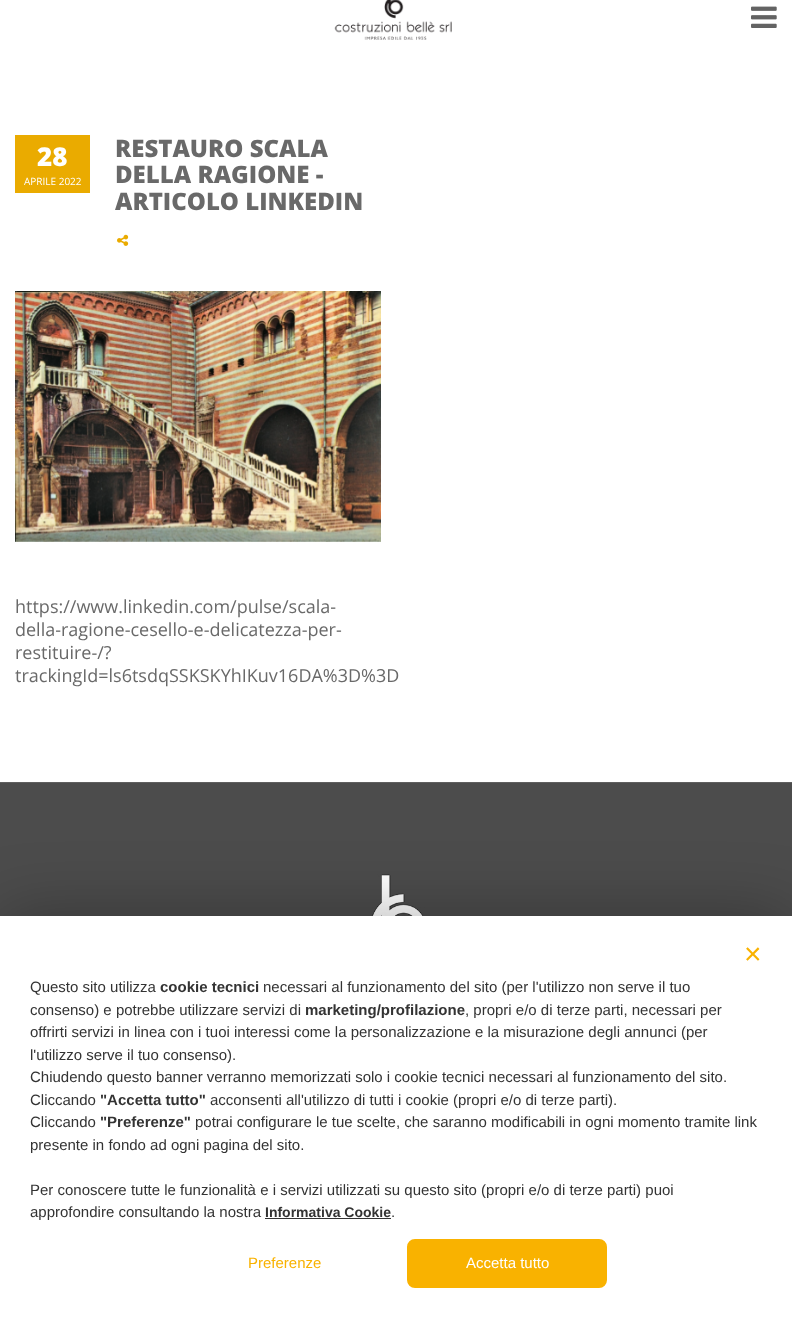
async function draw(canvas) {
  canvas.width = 792;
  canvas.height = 1318;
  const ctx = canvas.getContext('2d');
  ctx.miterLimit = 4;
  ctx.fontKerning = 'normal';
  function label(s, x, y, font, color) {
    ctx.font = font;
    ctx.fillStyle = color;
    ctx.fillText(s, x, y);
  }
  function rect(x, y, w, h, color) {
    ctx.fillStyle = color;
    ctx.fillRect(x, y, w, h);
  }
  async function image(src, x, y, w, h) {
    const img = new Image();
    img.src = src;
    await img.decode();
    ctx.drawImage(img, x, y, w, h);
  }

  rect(0, 0, 792, 1318, '#fff');
  await image('assets/img1.png', 334, 0, 118, 40);
  await image('assets/img2.png', 751, 6, 26, 22);
  rect(15, 135, 75, 58, '#eaab00');
  label('28', 37, 166, '800 26px Open Sans', '#fff');
  label('APRILE 2022', 24, 185, '10px Open Sans', '#fff');
  label('RESTAURO SCALA', 115, 157, '800 24px Open Sans', '#696969');
  label('DELLA RAGIONE -', 115, 183, '800 24px Open Sans', '#696969');
  label('ARTICOLO LINKEDIN', 115, 210, '800 24px Open Sans', '#696969');
  await image('assets/img3.png', 117, 234, 12, 12);
  await image('assets/img4.png', 15, 291, 366, 251);
  label('https://www.linkedin.com/pulse/scala-', 15, 613, '18px Open Sans', '#696969');
  label('della-ragione-cesello-e-delicatezza-per-', 15, 636, '18px Open Sans', '#696969');
  label('restituire-/?', 15, 659, '18px Open Sans', '#696969');
  label('trackingId=ls6tsdqSSKSKYhIKuv16DA%3D%3D', 15, 682, '18px Open Sans', '#696969');
  rect(0, 783, 792, 133, '#4c4c4c');
  rect(0, 782, 792, 1, '#5f5f5f');
  await image('assets/img5.png', 247, 874, 297, 42);
  ctx.fillStyle = '#0000004d';
  ctx.filter = 'blur(34px)';
  ctx.beginPath();
  ctx.rect(0, 916, 792, 402);
  ctx.fill();
  ctx.filter = 'none';
  rect(0, 916, 792, 402, '#fff');
  label('×', 744, 964, '30px Liberation Sans', '#f9b200');
  label('Questo sito utilizza', 30, 992, '15px Liberation Sans', '#333');
  label('cookie tecnici', 160, 992, 'bold 15px Liberation Sans', '#333');
  label('necessari al funzionamento del sito (per l\'utilizzo non serve il tuo', 263, 992, '15px Liberation Sans', '#333');
  label('consenso) e potrebbe utilizzare servizi di', 30, 1015, '15px Liberation Sans', '#333');
  label('marketing/profilazione', 305, 1015, 'bold 15px Liberation Sans', '#333');
  label(', propri e/o di terze parti, necessari per', 465, 1015, '15px Liberation Sans', '#333');
  label('offrirti servizi in linea con i tuoi interessi come la personalizzazione e la misurazione degli annunci (per', 30, 1037, '15px Liberation Sans', '#333');
  label('l\'utilizzo serve il tuo consenso).', 30, 1060, '15px Liberation Sans', '#333');
  label('Chiudendo questo banner verranno memorizzati solo i cookie tecnici necessari al funzionamento del sito.', 30, 1082, '15px Liberation Sans', '#333');
  label('Cliccando', 30, 1105, '15px Liberation Sans', '#333');
  label('"Accetta tutto"', 100, 1105, 'bold 15px Liberation Sans', '#333');
  label('acconsenti all\'utilizzo di tutti i cookie (propri e/o di terze parti).', 210, 1105, '15px Liberation Sans', '#333');
  label('Cliccando', 30, 1127, '15px Liberation Sans', '#333');
  label('"Preferenze"', 100, 1127, 'bold 15px Liberation Sans', '#333');
  label('potrai configurare le tue scelte, che saranno modificabili in ogni momento tramite link', 195, 1127, '15px Liberation Sans', '#333');
  label('presente in fondo ad ogni pagina del sito.', 30, 1150, '15px Liberation Sans', '#333');
  label('Per conoscere tutte le funzionalità e i servizi utilizzati su questo sito (propri e/o di terze parti) puoi', 30, 1195, '15px Liberation Sans', '#333');
  label('approfondire consultando la nostra', 30, 1217, '15px Liberation Sans', '#333');
  label('Informativa Cookie', 265, 1217, 'bold 14px Liberation Sans', '#333');
  rect(265, 1218, 126, 1, '#333');
  label('.', 391, 1217, '15px Liberation Sans', '#333');
  label('Preferenze', 248, 1268, '15px Liberation Sans', '#f9b200');
  ctx.beginPath();
  ctx.roundRect(408, 1240, 198, 47, 7);
  ctx.fill();
  ctx.strokeStyle = '#f9b200';
  ctx.lineWidth = 2;
  ctx.stroke();
  label('Accetta tutto', 466, 1268, '15px Liberation Sans', '#fff');
}

draw(document.querySelector('canvas'));
